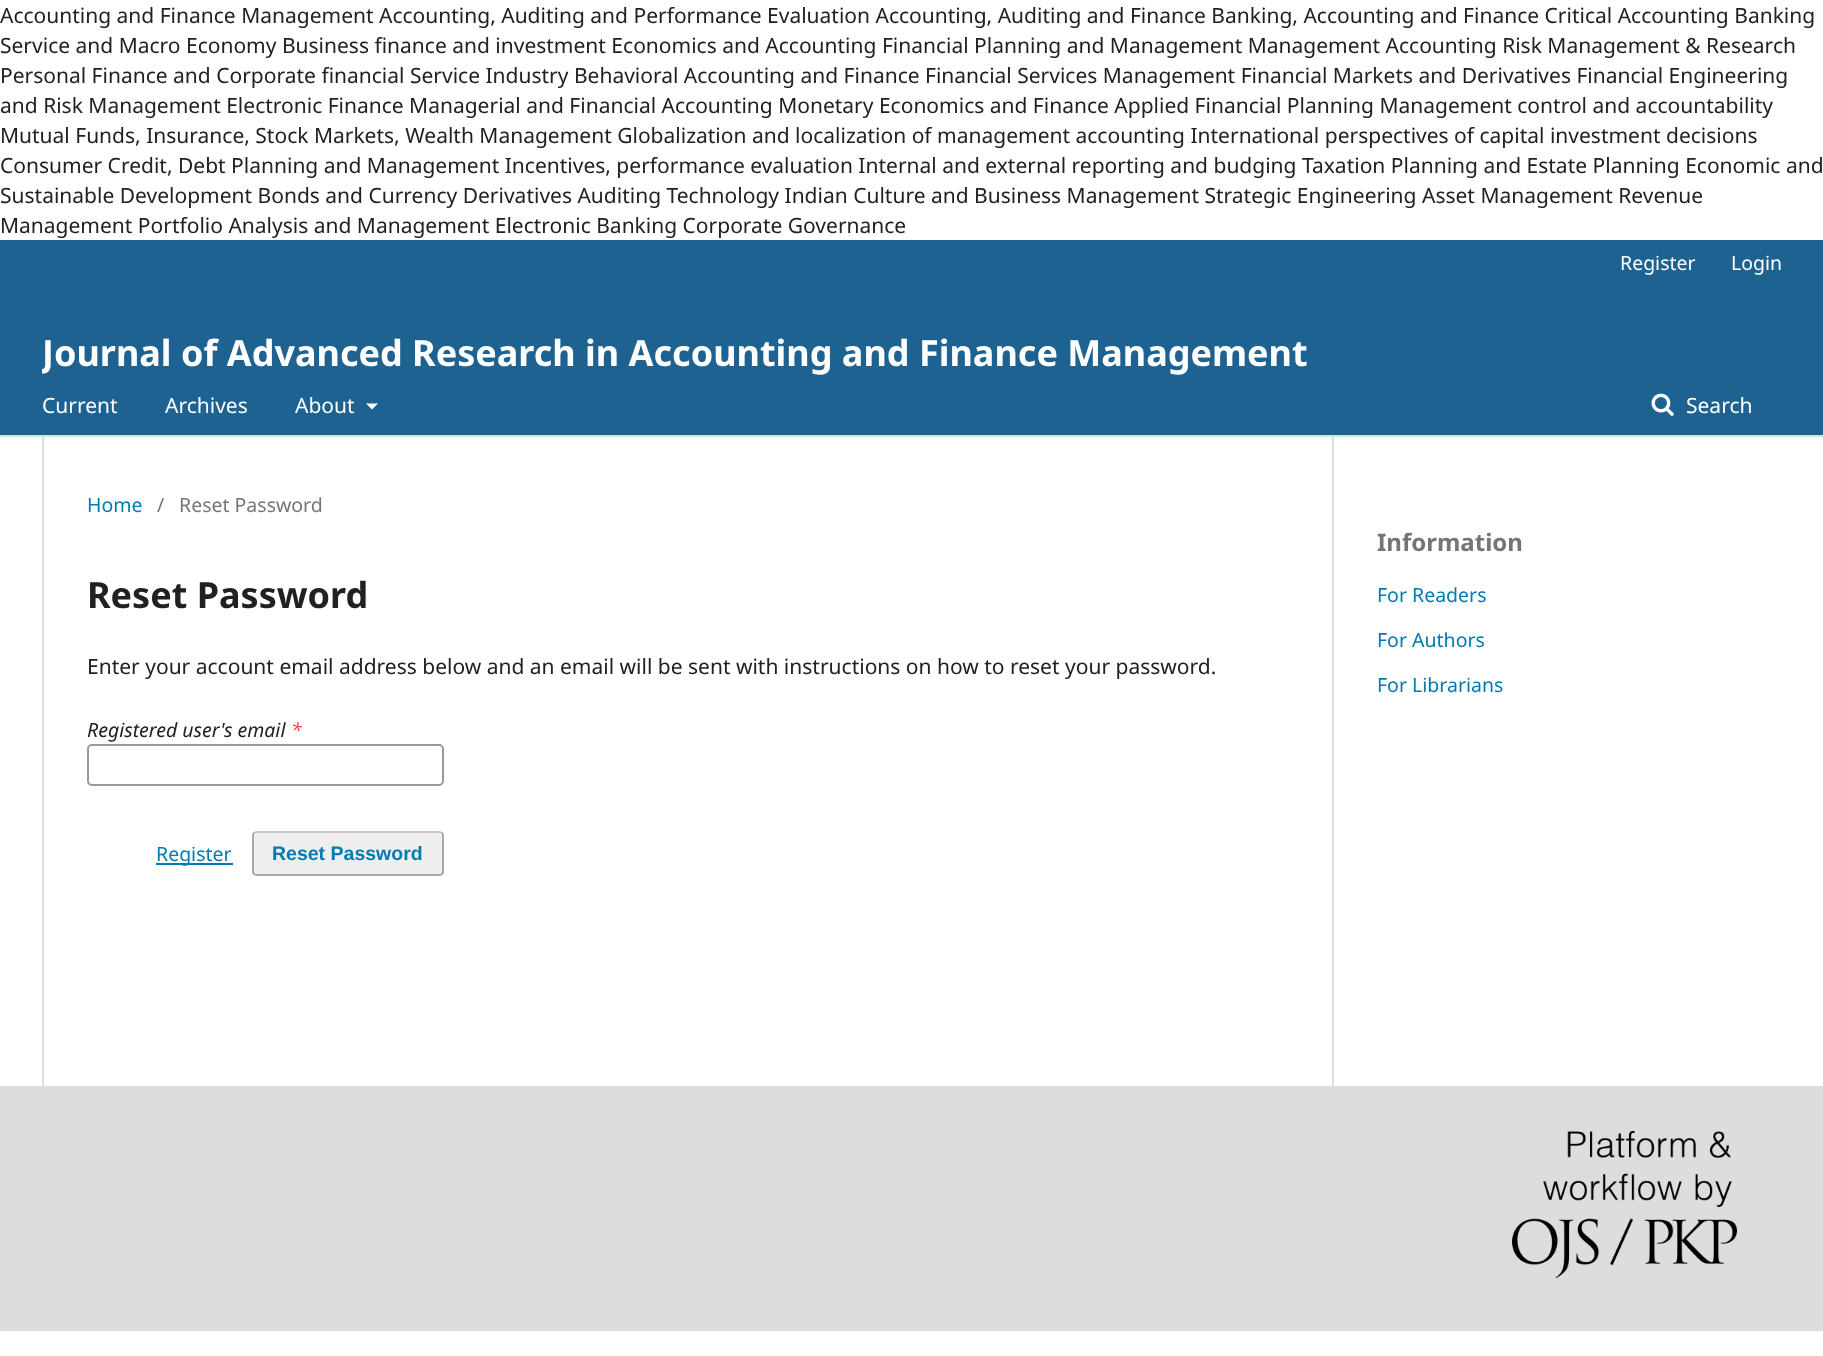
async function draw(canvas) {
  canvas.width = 1823;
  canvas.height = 1356;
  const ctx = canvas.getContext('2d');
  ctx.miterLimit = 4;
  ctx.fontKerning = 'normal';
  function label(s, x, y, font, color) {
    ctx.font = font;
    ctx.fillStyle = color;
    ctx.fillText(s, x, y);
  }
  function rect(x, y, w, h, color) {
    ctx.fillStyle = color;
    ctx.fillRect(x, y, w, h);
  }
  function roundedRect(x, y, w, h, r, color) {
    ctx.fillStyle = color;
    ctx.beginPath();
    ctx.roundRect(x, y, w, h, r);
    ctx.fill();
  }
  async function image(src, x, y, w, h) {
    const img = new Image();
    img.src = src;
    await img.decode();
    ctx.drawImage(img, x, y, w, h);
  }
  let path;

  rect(0, 0, 1823, 1356, '#fff');
  label('Accounting and Finance Management Accounting, Auditing and Performance Evaluation Accounting, Auditing and Finance Banking, Accounting and Finance Critical Accounting Banking', 0, 23, '21px Noto Sans', '#212121');
  label('Service and Macro Economy Business finance and investment Economics and Accounting Financial Planning and Management Management Accounting Risk Management & Research', 0, 53, '21px Noto Sans', '#212121');
  label('Personal Finance and Corporate financial Service Industry Behavioral Accounting and Finance Financial Services Management Financial Markets and Derivatives Financial Engineering', 0, 83, '21px Noto Sans', '#212121');
  label('and Risk Management Electronic Finance Managerial and Financial Accounting Monetary Economics and Finance Applied Financial Planning Management control and accountability', 0, 113, '21px Noto Sans', '#212121');
  label('Mutual Funds, Insurance, Stock Markets, Wealth Management Globalization and localization of management accounting International perspectives of capital investment decisions', 0, 143, '21px Noto Sans', '#212121');
  label('Consumer Credit, Debt Planning and Management Incentives, performance evaluation Internal and external reporting and budging Taxation Planning and Estate Planning Economic and', 0, 173, '21px Noto Sans', '#212121');
  label('Sustainable Development Bonds and Currency Derivatives Auditing Technology Indian Culture and Business Management Strategic Engineering Asset Management Revenue', 0, 203, '21px Noto Sans', '#212121');
  label('Management Portfolio Analysis and Management Electronic Banking Corporate Governance', 0, 233, '21px Noto Sans', '#212121');
  rect(0, 240, 1823, 195, '#1e6292');
  rect(0, 435, 1823, 2, '#ddd');
  label('Register', 1620, 270, '19.5px Noto Sans', '#fff');
  label('Login', 1731, 270, '19.5px Noto Sans', '#fff');
  label('Current', 42, 413, '21px Noto Sans', '#fff');
  label('Archives', 165, 413, '21px Noto Sans', '#fff');
  label('About', 295, 413, '21px Noto Sans', '#fff');
  path = new Path2D('M366 403.5H378L372 409.5Z');
  ctx.fill(path);
  await image('assets/img1.png', 1651, 393, 23, 23);
  label('Search', 1686, 413, '21px Noto Sans', '#fff');
  ctx.save();
  ctx.beginPath();
  ctx.rect(42, 330, 1740, 45);
  ctx.clip();
  label('Journal of Advanced Research in Accounting and Finance Management', 42, 366, 'bold 36px Noto Sans', '#fff');
  ctx.restore();
  rect(42, 437, 2, 649, '#ddd');
  label('Home', 87, 512, '19.5px Noto Sans', '#007ab2');
  label('/', 157, 512, '19.5px Noto Sans', '#757575');
  label('Reset Password', 179, 512, '19.5px Noto Sans', '#757575');
  label('Reset Password', 87, 608, 'bold 36px Noto Sans', '#212121');
  label('Enter your account email address below and an email will be sent with instructions on how to reset your password.', 87, 674, '21px Noto Sans', '#212121');
  label('Registered user\'s email', 87, 737, 'italic 19.5px Noto Sans', '#212121');
  label('*', 291, 737, 'italic 19.5px Noto Sans', '#ff4040');
  ctx.beginPath();
  ctx.roundRect(88, 745, 355, 40, 4);
  ctx.strokeStyle = '#999';
  ctx.lineWidth = 2;
  ctx.stroke();
  rect(156, 863, 77, 2, '#007ab2');
  label('Register', 156, 861, '19.5px Noto Sans', '#007ab2');
  roundedRect(252, 831, 192, 45, 5, '#eee');
  path = new Path2D('M254 833L256 832H409H439.5L442 833');
  ctx.strokeStyle = '#bbb';
  ctx.lineWidth = 1.5;
  ctx.stroke(path);
  path = new Path2D('M442 833C443 833.5 443 834.5 443 835.5V871.5C443 872.5 443 873.5 442 874C441.5 875 440.5 875 439.5 875H256.5C255.5 875 254.5 875 254 874C253 873.5 253 872.5 253 871.5V835.5C253 834.5 253 833.5 254 833');
  ctx.strokeStyle = '#00000066';
  ctx.stroke(path);
  label('Reset Password', 272, 860, 'bold 19.5px Liberation Sans', '#007ab2');
  rect(1332, 437, 2, 649, '#ddd');
  label('Information', 1377, 551, 'bold 24px Noto Sans', '#757575');
  label('For Readers', 1377, 602, '19.5px Noto Sans', '#007ab2');
  label('For Authors', 1377, 647, '19.5px Noto Sans', '#007ab2');
  label('For Librarians', 1377, 692, '19.5px Noto Sans', '#007ab2');
  rect(0, 1086, 1823, 245, '#ddd');
  await image('assets/img2.png', 1512, 1131, 225, 147);
}

draw(document.querySelector('canvas'));
